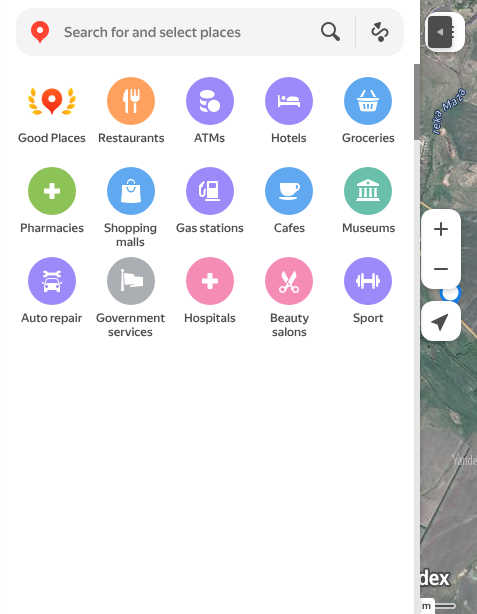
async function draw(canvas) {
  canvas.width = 477;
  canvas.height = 614;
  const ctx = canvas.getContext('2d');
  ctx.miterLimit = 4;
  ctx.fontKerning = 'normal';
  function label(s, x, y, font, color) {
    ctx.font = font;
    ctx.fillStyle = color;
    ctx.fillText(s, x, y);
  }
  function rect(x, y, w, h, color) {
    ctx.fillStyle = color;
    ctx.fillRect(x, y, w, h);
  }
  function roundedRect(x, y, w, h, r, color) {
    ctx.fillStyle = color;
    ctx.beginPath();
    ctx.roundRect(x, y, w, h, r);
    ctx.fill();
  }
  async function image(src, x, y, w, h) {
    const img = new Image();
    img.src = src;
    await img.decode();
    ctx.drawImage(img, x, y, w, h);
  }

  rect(0, 0, 477, 614, '#fff');
  await image('assets/img25.png', 420, 0, 31, 13);
  await image('assets/img26.png', 451, 0, 26, 13);
  await image('assets/img27.png', 420, 13, 31, 256);
  await image('assets/img28.png', 451, 13, 26, 256);
  await image('assets/img33.png', 431, 0, 20, 13);
  await image('assets/img34.png', 420, 13, 31, 245);
  await image('assets/img35.png', 451, 16, 26, 93);
  ctx.fillStyle = '#00000033';
  ctx.filter = 'blur(3px)';
  ctx.beginPath();
  ctx.roundRect(425, 14, 40, 40, 12);
  ctx.fill();
  ctx.filter = 'none';
  roundedRect(425, 12, 40, 40, 12, '#fff');
  await image('assets/img29.png', 420, 269, 31, 256);
  await image('assets/img30.png', 451, 269, 26, 256);
  await image('assets/img36.png', 439, 289, 2, 1);
  await image('assets/img38.png', 439, 284, 23, 21);
  ctx.fillStyle = '#00000033';
  ctx.filter = 'blur(3px)';
  ctx.beginPath();
  ctx.roundRect(421, 211, 40, 80, 12);
  ctx.fill();
  ctx.filter = 'none';
  ctx.fillStyle = '#fff';
  ctx.beginPath();
  ctx.roundRect(421, 209, 40, 40, [12, 12, 0, 0]);
  ctx.fill();
  ctx.beginPath();
  ctx.roundRect(421, 249, 40, 40, [0, 0, 12, 12]);
  ctx.fill();
  await image('assets/img37.png', 461, 319, 16, 20);
  ctx.fillStyle = '#00000033';
  ctx.filter = 'blur(3px)';
  ctx.beginPath();
  ctx.roundRect(421, 303, 40, 40, 12);
  ctx.fill();
  ctx.filter = 'none';
  roundedRect(421, 301, 40, 40, 12, '#fff');
  await image('assets/img31.png', 420, 525, 31, 89);
  await image('assets/img32.png', 451, 525, 26, 89);
  await image('assets/img24.png', 420, 567, 32, 21);
  roundedRect(378, 603, 78, 6, 3, '#ffffff99');
  roundedRect(380, 605, 74, 2, 1, '#4d4d4d');
  ctx.fillStyle = '#fff';
  ctx.beginPath();
  ctx.roundRect(399, 598, 36, 16, [4, 4, 0, 0]);
  ctx.fill();
  ctx.fillStyle = '#0000001a';
  ctx.filter = 'blur(1px)';
  ctx.beginPath();
  ctx.rect(2, 0, 420, 614);
  ctx.fill();
  ctx.filter = 'none';
  await image('assets/img4.png', 452, 26, 2, 12);
  ctx.fillStyle = '#00000033';
  ctx.filter = 'blur(3px)';
  ctx.beginPath();
  ctx.roundRect(428, 18, 24, 32, 4);
  ctx.fill();
  ctx.filter = 'none';
  rect(1, 0, 419, 614, '#fff');
  roundedRect(16, 8, 388, 48, 16, '#f4f4f4');
  await image('assets/img1.png', 31, 21, 18, 23);
  label('Search for and select places', 64, 37, '500 14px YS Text', '#757575');
  await image('assets/img2.png', 321, 22, 19, 19);
  rect(355, 16, 1, 32, '#e0e0e0');
  await image('assets/img3.png', 371, 22, 18, 20);
  await image('assets/img5.png', 434, 222, 14, 14);
  await image('assets/img6.png', 434, 268, 14, 2);
  await image('assets/img7.png', 431, 313, 18, 18);
  roundedRect(428, 16, 24, 32, 4, '#4d4d4d');
  await image('assets/img8.png', 437, 28, 6, 8);
  await image('assets/img9.png', 28, 87, 48, 28);
  label('Good Places', 18, 142, '500 12px YS Text', '#4d4d4d');
  ctx.fillStyle = '#ffa15e';
  ctx.beginPath();
  ctx.arc(131, 101, 24, 0, 2 * Math.PI);
  ctx.fill();
  await image('assets/img10.png', 123, 89, 17, 24);
  label('Restaurants', 98, 142, '500 12px YS Text', '#4d4d4d');
  ctx.fillStyle = '#9c89fa';
  ctx.beginPath();
  ctx.arc(210, 101, 24, 0, 2 * Math.PI);
  ctx.fill();
  await image('assets/img11.png', 199, 90, 22, 22);
  label('ATMs', 194, 142, '500 12px YS Text', '#4d4d4d');
  ctx.fillStyle = '#9c89fa';
  ctx.beginPath();
  ctx.arc(289, 101, 24, 0, 2 * Math.PI);
  ctx.fill();
  await image('assets/img12.png', 278, 95, 22, 12);
  label('Hotels', 271, 142, '500 12px YS Text', '#4d4d4d');
  ctx.fillStyle = '#60a8f0';
  ctx.beginPath();
  ctx.arc(368, 101, 24, 0, 2 * Math.PI);
  ctx.fill();
  await image('assets/img13.png', 357, 90, 22, 22);
  label('Groceries', 342, 142, '500 12px YS Text', '#4d4d4d');
  ctx.fillStyle = '#8dc257';
  ctx.beginPath();
  ctx.arc(52, 191, 24, 0, 2 * Math.PI);
  ctx.fill();
  await image('assets/img14.png', 44, 183, 16, 16);
  label('Pharmacies', 20, 232, '500 12px YS Text', '#4d4d4d');
  ctx.fillStyle = '#60a8f0';
  ctx.beginPath();
  ctx.arc(131, 191, 24, 0, 2 * Math.PI);
  ctx.fill();
  await image('assets/img15.png', 121, 179, 20, 24);
  label('Shopping', 104, 232, '500 12px YS Text', '#4d4d4d');
  label('malls', 116, 246, '500 12px YS Text', '#4d4d4d');
  ctx.fillStyle = '#9c89fa';
  ctx.beginPath();
  ctx.arc(210, 191, 24, 0, 2 * Math.PI);
  ctx.fill();
  await image('assets/img16.png', 199, 181, 21, 20);
  label('Gas stations', 176, 232, '500 12px YS Text', '#4d4d4d');
  ctx.fillStyle = '#60a8f0';
  ctx.beginPath();
  ctx.arc(289, 191, 24, 0, 2 * Math.PI);
  ctx.fill();
  await image('assets/img17.png', 279, 183, 21, 17);
  label('Cafes', 274, 232, '500 12px YS Text', '#4d4d4d');
  ctx.fillStyle = '#69bfaa';
  ctx.beginPath();
  ctx.arc(368, 191, 24, 0, 2 * Math.PI);
  ctx.fill();
  await image('assets/img18.png', 356, 179, 24, 22);
  label('Museums', 342, 232, '500 12px YS Text', '#4d4d4d');
  ctx.fillStyle = '#9c89fa';
  ctx.beginPath();
  ctx.arc(52, 281, 24, 0, 2 * Math.PI);
  ctx.fill();
  await image('assets/img19.png', 42, 270, 20, 22);
  label('Auto repair', 21, 322, '500 12px YS Text', '#4d4d4d');
  ctx.fillStyle = '#abaeb2';
  ctx.beginPath();
  ctx.arc(131, 281, 24, 0, 2 * Math.PI);
  ctx.fill();
  await image('assets/img20.png', 121, 269, 22, 22);
  label('Government', 96, 322, '500 12px YS Text', '#4d4d4d');
  label('services', 108, 336, '500 12px YS Text', '#4d4d4d');
  ctx.fillStyle = '#f58cb6';
  ctx.beginPath();
  ctx.arc(210, 281, 24, 0, 2 * Math.PI);
  ctx.fill();
  await image('assets/img21.png', 202, 273, 16, 16);
  label('Hospitals', 184, 322, '500 12px YS Text', '#4d4d4d');
  ctx.fillStyle = '#f58cb6';
  ctx.beginPath();
  ctx.arc(289, 281, 24, 0, 2 * Math.PI);
  ctx.fill();
  await image('assets/img22.png', 279, 270, 20, 23);
  label('Beauty', 270, 322, '500 12px YS Text', '#4d4d4d');
  label('salons', 272, 336, '500 12px YS Text', '#4d4d4d');
  ctx.fillStyle = '#9c89fa';
  ctx.beginPath();
  ctx.arc(368, 281, 24, 0, 2 * Math.PI);
  ctx.fill();
  await image('assets/img23.png', 356, 273, 24, 16);
  label('Sport', 353, 322, '500 12px YS Text', '#4d4d4d');
  rect(414, 64, 6, 76, '#8a8a8a');
  rect(414, 140, 6, 474, '#e6e6e6');
  label('m', 422, 609, 'bold 10px YS Text', '#4d4d4d');
  rect(451, 0, 1, 1, '#7e8398');
}

draw(document.querySelector('canvas'));
